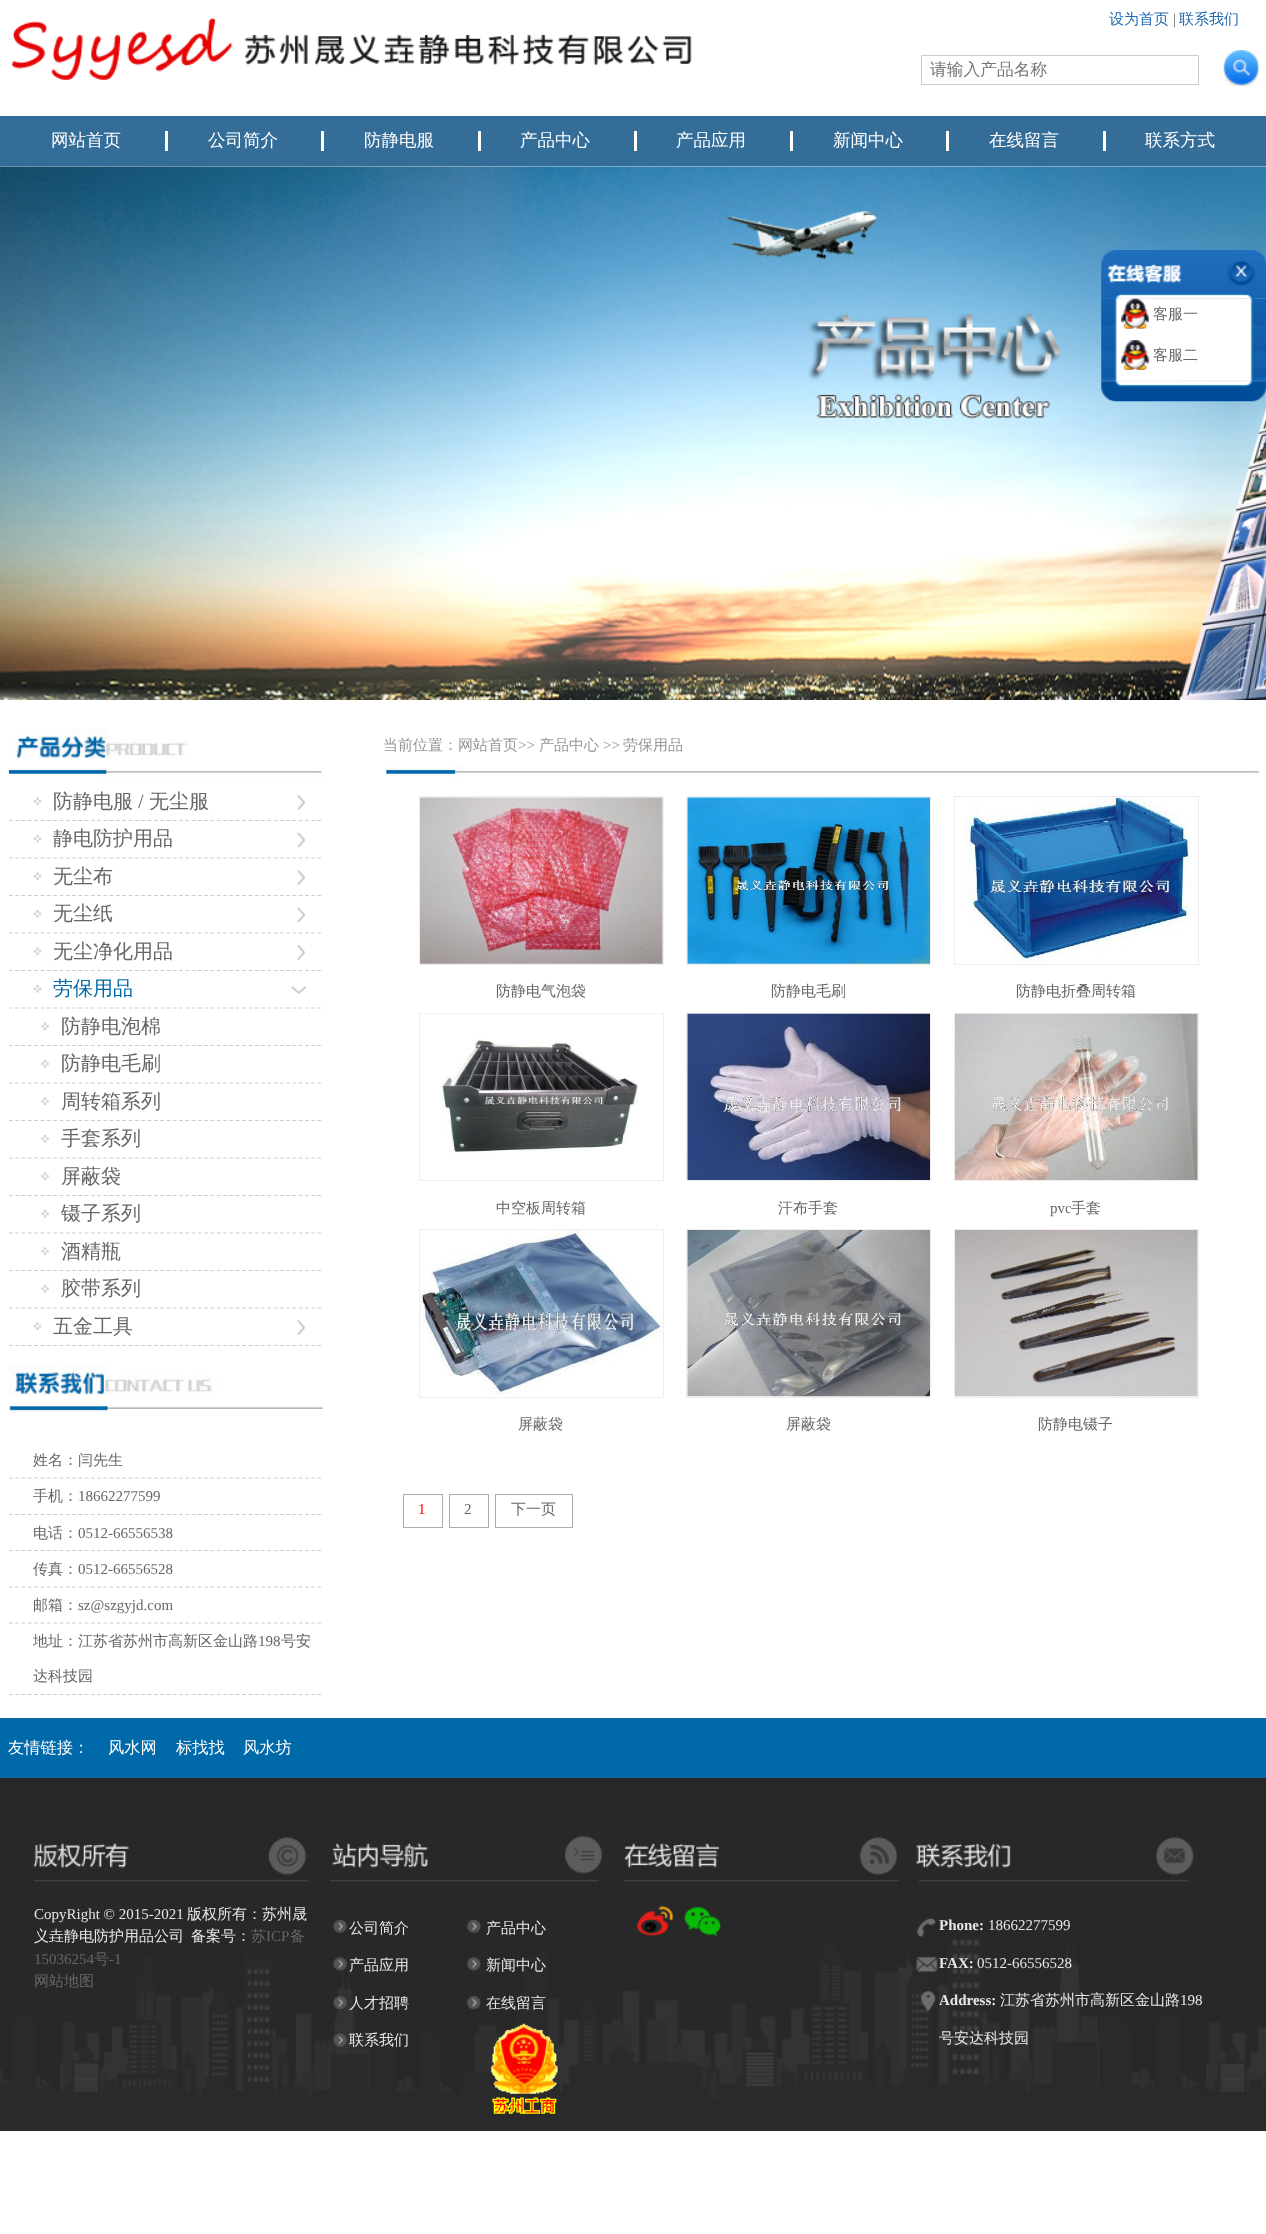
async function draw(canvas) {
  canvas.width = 1266;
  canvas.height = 2234;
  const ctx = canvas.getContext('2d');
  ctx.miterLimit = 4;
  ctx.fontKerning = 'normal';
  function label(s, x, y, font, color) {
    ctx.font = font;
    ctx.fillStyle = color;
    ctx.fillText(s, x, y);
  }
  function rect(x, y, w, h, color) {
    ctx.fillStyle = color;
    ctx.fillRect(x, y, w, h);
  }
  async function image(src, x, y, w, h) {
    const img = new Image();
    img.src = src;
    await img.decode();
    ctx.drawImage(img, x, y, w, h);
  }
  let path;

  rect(0, 0, 1266, 2234, '#fff');
  ctx.save();
  ctx.beginPath();
  ctx.rect(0, 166, 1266, 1);
  ctx.clip();
  ctx.fillStyle = '#ccc';
  ctx.filter = 'blur(2.5px)';
  ctx.beginPath();
  ctx.rect(0, 0, 1266, 166);
  ctx.fill();
  ctx.filter = 'none';
  ctx.restore();
  await image('assets/img1.png', 11, 18, 681, 62);
  label('设为首页', 1109, 24, '500 15px WenQuanYi Zen Hei', '#236bb3');
  label('|', 1173, 24, '15px Liberation Serif', '#666');
  label('联系我们', 1179, 24, '500 15px WenQuanYi Zen Hei', '#236bb3');
  ctx.strokeStyle = '#ccc';
  ctx.strokeRect(921.5, 55.5, 277, 29);
  label('请输入产品名称', 930, 75, '500 16.75px WenQuanYi Zen Hei', '#757575');
  await image('assets/img2.png', 1223, 50, 36, 36);
  rect(0, 116, 1266, 50, '#336d98');
  rect(165, 131, 3, 20, '#fff');
  label('网站首页', 51, 146, '500 17.5px WenQuanYi Zen Hei', '#fff');
  rect(321, 131, 3, 20, '#fff');
  label('公司简介', 208, 146, '500 17.5px WenQuanYi Zen Hei', '#fff');
  rect(478, 131, 3, 20, '#fff');
  label('防静电服', 364, 146, '500 17.5px WenQuanYi Zen Hei', '#fff');
  rect(634, 131, 3, 20, '#fff');
  label('产品中心', 520, 146, '500 17.5px WenQuanYi Zen Hei', '#fff');
  rect(790, 131, 3, 20, '#fff');
  label('产品应用', 676, 146, '500 17.5px WenQuanYi Zen Hei', '#fff');
  rect(946, 131, 3, 20, '#fff');
  label('新闻中心', 833, 146, '500 17.5px WenQuanYi Zen Hei', '#fff');
  rect(1103, 131, 3, 20, '#fff');
  label('在线留言', 989, 146, '500 17.5px WenQuanYi Zen Hei', '#fff');
  label('联系方式', 1145, 146, '500 17.5px WenQuanYi Zen Hei', '#fff');
  await image('assets/img3.png', 0, 166, 1266, 534);
  await image('assets/img5.png', 1101, 298, 165, 84);
  await image('assets/img4.png', 1101, 250, 165, 49);
  await image('assets/img6.png', 1121, 298, 28, 31);
  label('客服一', 1153, 319, '500 15px WenQuanYi Zen Hei', '#666');
  await image('assets/img7.png', 1121, 340, 29, 30);
  label('客服二', 1153, 360, '500 15px WenQuanYi Zen Hei', '#666');
  await image('assets/img8.png', 1101, 381, 165, 21);
  await image('assets/img9.png', 8, 729, 315, 49);
  await image('assets/img10.png', 297, 795, 8, 15);
  path = new Path2D('M9 820.5H321');
  ctx.lineWidth = 1.2;
  ctx.setLineDash([3.75, 2.55]);
  ctx.stroke(path);
  await image('assets/img11.png', 33, 797, 9, 8);
  label('防静电服', 53, 808, '500 20px WenQuanYi Zen Hei', '#666');
  label('/', 138, 808, '20px Liberation Serif', '#666');
  label('无尘服', 149, 808, '500 20px WenQuanYi Zen Hei', '#666');
  await image('assets/img12.png', 297, 832, 8, 16);
  path = new Path2D('M9 858H321');
  ctx.stroke(path);
  await image('assets/img13.png', 33, 835, 9, 8);
  label('静电防护用品', 53, 845, '500 20px WenQuanYi Zen Hei', '#666');
  await image('assets/img10.png', 297, 870, 8, 15);
  path = new Path2D('M9 895.5H321');
  ctx.stroke(path);
  await image('assets/img11.png', 33, 872, 9, 8);
  label('无尘布', 53, 883, '500 20px WenQuanYi Zen Hei', '#666');
  await image('assets/img12.png', 297, 907, 8, 16);
  path = new Path2D('M9 933H321');
  ctx.stroke(path);
  await image('assets/img13.png', 33, 910, 9, 8);
  label('无尘纸', 53, 920, '500 20px WenQuanYi Zen Hei', '#666');
  await image('assets/img10.png', 297, 945, 8, 15);
  path = new Path2D('M9 970.5H321');
  ctx.stroke(path);
  await image('assets/img11.png', 33, 947, 9, 8);
  label('无尘净化用品', 53, 958, '500 20px WenQuanYi Zen Hei', '#666');
  await image('assets/img14.png', 291, 986, 16, 8);
  path = new Path2D('M9 1008H321');
  ctx.stroke(path);
  await image('assets/img13.png', 33, 985, 9, 8);
  label('劳保用品', 53, 995, '500 20px WenQuanYi Zen Hei', '#0069aa');
  path = new Path2D('M9 1045.5H321');
  ctx.stroke(path);
  await image('assets/img15.png', 41, 1022, 8, 8);
  label('防静电泡棉', 61, 1033, '500 20px WenQuanYi Zen Hei', '#666');
  path = new Path2D('M9 1083H321');
  ctx.stroke(path);
  await image('assets/img16.png', 41, 1060, 8, 8);
  label('防静电毛刷', 61, 1070, '500 20px WenQuanYi Zen Hei', '#666');
  path = new Path2D('M9 1120.5H321');
  ctx.stroke(path);
  await image('assets/img17.png', 41, 1097, 8, 8);
  label('周转箱系列', 61, 1108, '500 20px WenQuanYi Zen Hei', '#666');
  path = new Path2D('M9 1158H321');
  ctx.stroke(path);
  await image('assets/img16.png', 41, 1135, 8, 8);
  label('手套系列', 61, 1145, '500 20px WenQuanYi Zen Hei', '#666');
  path = new Path2D('M9 1195.5H321');
  ctx.stroke(path);
  await image('assets/img15.png', 41, 1172, 8, 8);
  label('屏蔽袋', 61, 1183, '500 20px WenQuanYi Zen Hei', '#666');
  path = new Path2D('M9 1233H321');
  ctx.stroke(path);
  await image('assets/img16.png', 41, 1210, 8, 8);
  label('镊子系列', 61, 1220, '500 20px WenQuanYi Zen Hei', '#666');
  path = new Path2D('M9 1270.5H321');
  ctx.stroke(path);
  await image('assets/img17.png', 41, 1247, 8, 8);
  label('酒精瓶', 61, 1258, '500 20px WenQuanYi Zen Hei', '#666');
  path = new Path2D('M9 1308H321');
  ctx.stroke(path);
  await image('assets/img16.png', 41, 1285, 8, 8);
  label('胶带系列', 61, 1295, '500 20px WenQuanYi Zen Hei', '#666');
  await image('assets/img10.png', 297, 1320, 8, 15);
  path = new Path2D('M9 1345.5H321');
  ctx.stroke(path);
  await image('assets/img11.png', 33, 1322, 9, 8);
  label('五金工具', 53, 1333, '500 20px WenQuanYi Zen Hei', '#666');
  await image('assets/img18.png', 9, 1365, 314, 49);
  path = new Path2D('M9 1478H321');
  ctx.stroke(path);
  label('姓名：闫先生', 33, 1465, '500 15px WenQuanYi Zen Hei', '#666');
  path = new Path2D('M9 1514.5H321');
  ctx.stroke(path);
  label('手机：', 33, 1501, '500 15px WenQuanYi Zen Hei', '#666');
  label('18662277599', 78, 1501, '15px Liberation Serif', '#666');
  path = new Path2D('M9 1550.5H321');
  ctx.stroke(path);
  label('电话：', 33, 1538, '500 15px WenQuanYi Zen Hei', '#666');
  label('0512-66556538', 78, 1538, '15px Liberation Serif', '#666');
  path = new Path2D('M9 1587H321');
  ctx.stroke(path);
  label('传真：', 33, 1574, '500 15px WenQuanYi Zen Hei', '#666');
  label('0512-66556528', 78, 1574, '15px Liberation Serif', '#666');
  path = new Path2D('M9 1623H321');
  ctx.stroke(path);
  label('邮箱：', 33, 1610, '500 15px WenQuanYi Zen Hei', '#666');
  label('sz@szgyjd.com', 78, 1610, '15px Liberation Serif', '#666');
  ctx.save();
  ctx.beginPath();
  ctx.rect(9, 729, 1250, 966);
  ctx.clip();
  path = new Path2D('M9 1694.5H321');
  ctx.stroke(path);
  ctx.restore();
  label('地址：江苏省苏州市高新区金山路', 33, 1646, '500 15px WenQuanYi Zen Hei', '#666');
  label('198', 258, 1646, '15px Liberation Serif', '#666');
  label('号安', 281, 1646, '500 15px WenQuanYi Zen Hei', '#666');
  label('达科技园', 33, 1681, '500 15px WenQuanYi Zen Hei', '#666');
  label('当前位置：网站首页', 383, 750, '500 15px WenQuanYi Zen Hei', '#969696');
  label('>>', 518, 750, '15px Liberation Serif', '#969696');
  label('产品中心', 539, 750, '500 15px WenQuanYi Zen Hei', '#969696');
  label('>>', 603, 750, '15px Liberation Serif', '#969696');
  label('劳保用品', 623, 750, '500 15px WenQuanYi Zen Hei', '#969696');
  await image('assets/img19.png', 384, 766, 875, 11);
  ctx.strokeStyle = '#eee';
  ctx.lineWidth = 1;
  ctx.setLineDash([]);
  ctx.strokeRect(419.5, 796.5, 244, 168);
  await image('assets/img20.png', 420, 797, 243, 167);
  label('防静电气泡袋', 496, 996, '500 15px WenQuanYi Zen Hei', '#666');
  ctx.strokeRect(686.5, 796.5, 244, 168);
  await image('assets/img21.png', 687, 797, 243, 167);
  label('防静电毛刷', 771, 996, '500 15px WenQuanYi Zen Hei', '#666');
  ctx.strokeRect(954.5, 796.5, 244, 168);
  await image('assets/img22.png', 965, 797, 227, 166);
  label('防静电折叠周转箱', 1016, 996, '500 15px WenQuanYi Zen Hei', '#666');
  ctx.strokeRect(419.5, 1013.5, 244, 167);
  await image('assets/img23.png', 420, 1013, 242, 140);
  label('中空板周转箱', 496, 1213, '500 15px WenQuanYi Zen Hei', '#666');
  ctx.strokeRect(686.5, 1013.5, 244, 167);
  await image('assets/img24.png', 687, 1013, 243, 167);
  label('汗布手套', 778, 1213, '500 15px WenQuanYi Zen Hei', '#666');
  ctx.strokeRect(954.5, 1013.5, 244, 167);
  await image('assets/img25.png', 955, 1013, 243, 167);
  label('pvc', 1050, 1213, '15px Liberation Serif', '#666');
  label('手套', 1071, 1213, '500 15px WenQuanYi Zen Hei', '#666');
  ctx.strokeRect(419.5, 1229.5, 244, 168);
  await image('assets/img26.png', 420, 1230, 243, 166);
  label('屏蔽袋', 518, 1429, '500 15px WenQuanYi Zen Hei', '#666');
  ctx.strokeRect(686.5, 1229.5, 244, 168);
  await image('assets/img27.png', 687, 1230, 243, 167);
  label('屏蔽袋', 786, 1429, '500 15px WenQuanYi Zen Hei', '#666');
  ctx.strokeRect(954.5, 1229.5, 244, 168);
  await image('assets/img28.png', 955, 1230, 243, 167);
  label('防静电镊子', 1038, 1429, '500 15px WenQuanYi Zen Hei', '#666');
  ctx.strokeStyle = '#a5acb2';
  ctx.strokeRect(403.5, 1494.5, 39, 33);
  label('1', 418, 1514, '15px Liberation Serif', '#f00');
  ctx.strokeRect(449.5, 1494.5, 39, 33);
  label('2', 464, 1514, '15px Liberation Serif', '#666');
  ctx.strokeRect(495.5, 1494.5, 77, 33);
  label('下一页', 511, 1514, '500 15px WenQuanYi Zen Hei', '#666');
  rect(0, 1718, 1266, 60, '#0069aa');
  label('友情链接：', 8, 1753, '500 16.25px WenQuanYi Zen Hei', '#fff');
  label('风水网', 108, 1753, '500 16.25px WenQuanYi Zen Hei', '#fff');
  label('标找找', 176, 1753, '500 16.25px WenQuanYi Zen Hei', '#fff');
  label('风水坊', 243, 1753, '500 16.25px WenQuanYi Zen Hei', '#fff');
  rect(0, 1778, 1266, 353, '#282828');
  await image('assets/img29.png', 0, 1939, 1266, 193);
  await image('assets/img30.png', 33, 1836, 1161, 211);
  label('CopyRight © 2015-2021', 34, 1919, '15px Liberation Serif', '#e6e6e6');
  label('版权所有：苏州晟', 187, 1919, '500 15px WenQuanYi Zen Hei', '#e6e6e6');
  label('义垚静电防护用品公司', 34, 1941, '500 15px WenQuanYi Zen Hei', '#e6e6e6');
  label('备案号：', 191, 1941, '500 15px WenQuanYi Zen Hei', '#e6e6e6');
  label('苏', 251, 1941, '500 15px WenQuanYi Zen Hei', '#666');
  label('ICP', 266, 1941, '15px Liberation Serif', '#666');
  label('备', 290, 1941, '500 15px WenQuanYi Zen Hei', '#666');
  label('15036254', 34, 1964, '15px Liberation Serif', '#666');
  label('号', 94, 1964, '500 15px WenQuanYi Zen Hei', '#666');
  label('-1', 109, 1964, '15px Liberation Serif', '#666');
  label('网站地图', 34, 1986, '500 15px WenQuanYi Zen Hei', '#666');
  label('公司简介', 349, 1933, '500 15px WenQuanYi Zen Hei', '#e6e6e6');
  label('产品中心', 486, 1933, '500 15px WenQuanYi Zen Hei', '#e6e6e6');
  label('产品应用', 349, 1970, '500 15px WenQuanYi Zen Hei', '#e6e6e6');
  label('新闻中心', 486, 1970, '500 15px WenQuanYi Zen Hei', '#e6e6e6');
  label('人才招聘', 349, 2008, '500 15px WenQuanYi Zen Hei', '#e6e6e6');
  label('在线留言', 486, 2008, '500 15px WenQuanYi Zen Hei', '#e6e6e6');
  label('联系我们', 349, 2045, '500 15px WenQuanYi Zen Hei', '#e6e6e6');
  await image('assets/img31.png', 491, 2023, 67, 91);
  await image('assets/img32.png', 636, 1906, 38, 31);
  await image('assets/img33.png', 683, 1906, 39, 31);
  label('Phone:', 939, 1930, 'bold 15px Liberation Serif', '#e6e6e6');
  label('18662277599', 988, 1930, '15px Liberation Serif', '#e6e6e6');
  label('FAX:', 939, 1968, 'bold 15px Liberation Serif', '#e6e6e6');
  label('0512-66556528', 977, 1968, '15px Liberation Serif', '#e6e6e6');
  label('Address:', 939, 2005, 'bold 15px Liberation Serif', '#e6e6e6');
  label('江苏省苏州市高新区金山路', 1000, 2005, '500 15px WenQuanYi Zen Hei', '#e6e6e6');
  label('198', 1180, 2005, '15px Liberation Serif', '#e6e6e6');
  label('号安达科技园', 939, 2043, '500 15px WenQuanYi Zen Hei', '#e6e6e6');
}

draw(document.querySelector('canvas'));
